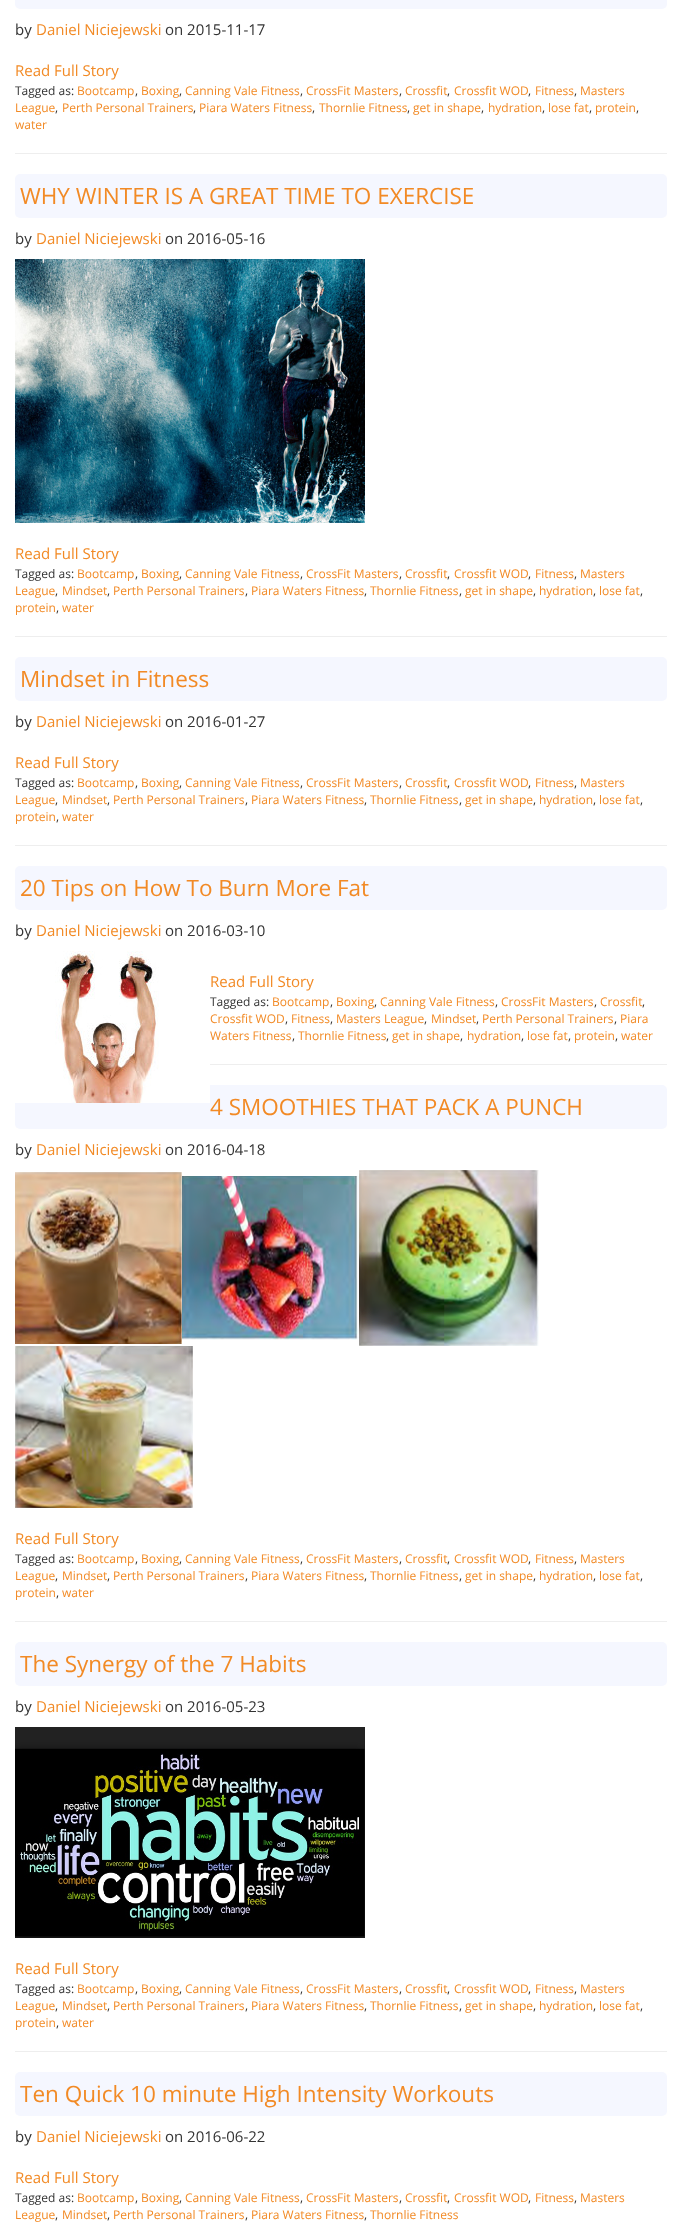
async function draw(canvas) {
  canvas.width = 682;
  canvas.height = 2229;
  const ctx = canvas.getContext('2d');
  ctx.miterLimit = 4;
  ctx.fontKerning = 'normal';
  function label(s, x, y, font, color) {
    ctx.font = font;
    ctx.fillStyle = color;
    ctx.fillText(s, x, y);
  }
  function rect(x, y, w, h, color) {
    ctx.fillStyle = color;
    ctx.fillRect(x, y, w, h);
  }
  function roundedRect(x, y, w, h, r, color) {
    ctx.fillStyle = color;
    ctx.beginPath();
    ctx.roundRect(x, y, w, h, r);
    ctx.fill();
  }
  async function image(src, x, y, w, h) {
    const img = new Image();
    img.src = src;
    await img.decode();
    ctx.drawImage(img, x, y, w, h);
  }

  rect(0, 0, 682, 2229, '#fff');
  roundedRect(15, -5, 652, 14, 5, '#f5f7ff');
  label('by', 15, 35, '15px Open Sans', '#333');
  label('Daniel Niciejewski', 36, 35, '15px Open Sans', '#f28a25');
  label('on 2015-11-17', 165, 35, '15px Open Sans', '#333');
  label('Read Full Story', 15, 76, '15px Open Sans', '#f28a25');
  label('Tagged as:', 15, 95, '12px Open Sans', '#333');
  label('Bootcamp', 77, 95, '12px Open Sans', '#f28a25');
  label(',', 135, 95, '12px Open Sans', '#333');
  label('Boxing', 141, 95, '12px Open Sans', '#f28a25');
  label(',', 179, 95, '12px Open Sans', '#333');
  label('Canning Vale Fitness', 185, 95, '12px Open Sans', '#f28a25');
  label(',', 300, 95, '12px Open Sans', '#333');
  label('CrossFit Masters', 306, 95, '12px Open Sans', '#f28a25');
  label(',', 399, 95, '12px Open Sans', '#333');
  label('Crossfit', 405, 95, '12px Open Sans', '#f28a25');
  label(',', 447, 95, '12px Open Sans', '#333');
  label('Crossfit WOD', 454, 95, '12px Open Sans', '#f28a25');
  label(',', 528, 95, '12px Open Sans', '#333');
  label('Fitness', 535, 95, '12px Open Sans', '#f28a25');
  label(',', 574, 95, '12px Open Sans', '#333');
  label('Masters', 580, 95, '12px Open Sans', '#f28a25');
  label('League', 15, 112, '12px Open Sans', '#f28a25');
  label(',', 55, 112, '12px Open Sans', '#333');
  label('Perth Personal Trainers', 62, 112, '12px Open Sans', '#f28a25');
  label(',', 193, 112, '12px Open Sans', '#333');
  label('Piara Waters Fitness', 199, 112, '12px Open Sans', '#f28a25');
  label(',', 312, 112, '12px Open Sans', '#333');
  label('Thornlie Fitness', 319, 112, '12px Open Sans', '#f28a25');
  label(',', 407, 112, '12px Open Sans', '#333');
  label('get in shape', 413, 112, '12px Open Sans', '#f28a25');
  label(',', 481, 112, '12px Open Sans', '#333');
  label('hydration', 488, 112, '12px Open Sans', '#f28a25');
  label(',', 542, 112, '12px Open Sans', '#333');
  label('lose fat', 548, 112, '12px Open Sans', '#f28a25');
  label(',', 589, 112, '12px Open Sans', '#333');
  label('protein', 595, 112, '12px Open Sans', '#f28a25');
  label(',', 636, 112, '12px Open Sans', '#333');
  label('water', 15, 129, '12px Open Sans', '#f28a25');
  rect(15, 153, 652, 1, '#eee');
  roundedRect(15, 174, 652, 44, 5, '#f5f7ff');
  label('WHY WINTER IS A GREAT TIME TO EXERCISE', 20, 204, '22.5px Open Sans', '#f28a25');
  label('by', 15, 244, '15px Open Sans', '#333');
  label('Daniel Niciejewski', 36, 244, '15px Open Sans', '#f28a25');
  label('on 2016-05-16', 165, 244, '15px Open Sans', '#333');
  await image('assets/img1.png', 15, 259, 350, 264);
  label('Read Full Story', 15, 559, '15px Open Sans', '#f28a25');
  label('Tagged as:', 15, 578, '12px Open Sans', '#333');
  label('Bootcamp', 77, 578, '12px Open Sans', '#f28a25');
  label(',', 135, 578, '12px Open Sans', '#333');
  label('Boxing', 141, 578, '12px Open Sans', '#f28a25');
  label(',', 179, 578, '12px Open Sans', '#333');
  label('Canning Vale Fitness', 185, 578, '12px Open Sans', '#f28a25');
  label(',', 300, 578, '12px Open Sans', '#333');
  label('CrossFit Masters', 306, 578, '12px Open Sans', '#f28a25');
  label(',', 399, 578, '12px Open Sans', '#333');
  label('Crossfit', 405, 578, '12px Open Sans', '#f28a25');
  label(',', 447, 578, '12px Open Sans', '#333');
  label('Crossfit WOD', 454, 578, '12px Open Sans', '#f28a25');
  label(',', 528, 578, '12px Open Sans', '#333');
  label('Fitness', 535, 578, '12px Open Sans', '#f28a25');
  label(',', 574, 578, '12px Open Sans', '#333');
  label('Masters', 580, 578, '12px Open Sans', '#f28a25');
  label('League', 15, 595, '12px Open Sans', '#f28a25');
  label(',', 55, 595, '12px Open Sans', '#333');
  label('Mindset', 62, 595, '12px Open Sans', '#f28a25');
  label(',', 107, 595, '12px Open Sans', '#333');
  label('Perth Personal Trainers', 113, 595, '12px Open Sans', '#f28a25');
  label(',', 245, 595, '12px Open Sans', '#333');
  label('Piara Waters Fitness', 251, 595, '12px Open Sans', '#f28a25');
  label(',', 364, 595, '12px Open Sans', '#333');
  label('Thornlie Fitness', 370, 595, '12px Open Sans', '#f28a25');
  label(',', 459, 595, '12px Open Sans', '#333');
  label('get in shape', 465, 595, '12px Open Sans', '#f28a25');
  label(',', 533, 595, '12px Open Sans', '#333');
  label('hydration', 539, 595, '12px Open Sans', '#f28a25');
  label(',', 593, 595, '12px Open Sans', '#333');
  label('lose fat', 599, 595, '12px Open Sans', '#f28a25');
  label(',', 640, 595, '12px Open Sans', '#333');
  label('protein', 15, 612, '12px Open Sans', '#f28a25');
  label(',', 56, 612, '12px Open Sans', '#333');
  label('water', 62, 612, '12px Open Sans', '#f28a25');
  rect(15, 636, 652, 1, '#eee');
  roundedRect(15, 657, 652, 44, 5, '#f5f7ff');
  label('Mindset in Fitness', 20, 687, '22.5px Open Sans', '#f28a25');
  label('by', 15, 727, '15px Open Sans', '#333');
  label('Daniel Niciejewski', 36, 727, '15px Open Sans', '#f28a25');
  label('on 2016-01-27', 165, 727, '15px Open Sans', '#333');
  label('Read Full Story', 15, 768, '15px Open Sans', '#f28a25');
  label('Tagged as:', 15, 787, '12px Open Sans', '#333');
  label('Bootcamp', 77, 787, '12px Open Sans', '#f28a25');
  label(',', 135, 787, '12px Open Sans', '#333');
  label('Boxing', 141, 787, '12px Open Sans', '#f28a25');
  label(',', 179, 787, '12px Open Sans', '#333');
  label('Canning Vale Fitness', 185, 787, '12px Open Sans', '#f28a25');
  label(',', 300, 787, '12px Open Sans', '#333');
  label('CrossFit Masters', 306, 787, '12px Open Sans', '#f28a25');
  label(',', 399, 787, '12px Open Sans', '#333');
  label('Crossfit', 405, 787, '12px Open Sans', '#f28a25');
  label(',', 447, 787, '12px Open Sans', '#333');
  label('Crossfit WOD', 454, 787, '12px Open Sans', '#f28a25');
  label(',', 528, 787, '12px Open Sans', '#333');
  label('Fitness', 535, 787, '12px Open Sans', '#f28a25');
  label(',', 574, 787, '12px Open Sans', '#333');
  label('Masters', 580, 787, '12px Open Sans', '#f28a25');
  label('League', 15, 804, '12px Open Sans', '#f28a25');
  label(',', 55, 804, '12px Open Sans', '#333');
  label('Mindset', 62, 804, '12px Open Sans', '#f28a25');
  label(',', 107, 804, '12px Open Sans', '#333');
  label('Perth Personal Trainers', 113, 804, '12px Open Sans', '#f28a25');
  label(',', 245, 804, '12px Open Sans', '#333');
  label('Piara Waters Fitness', 251, 804, '12px Open Sans', '#f28a25');
  label(',', 364, 804, '12px Open Sans', '#333');
  label('Thornlie Fitness', 370, 804, '12px Open Sans', '#f28a25');
  label(',', 459, 804, '12px Open Sans', '#333');
  label('get in shape', 465, 804, '12px Open Sans', '#f28a25');
  label(',', 533, 804, '12px Open Sans', '#333');
  label('hydration', 539, 804, '12px Open Sans', '#f28a25');
  label(',', 593, 804, '12px Open Sans', '#333');
  label('lose fat', 599, 804, '12px Open Sans', '#f28a25');
  label(',', 640, 804, '12px Open Sans', '#333');
  label('protein', 15, 821, '12px Open Sans', '#f28a25');
  label(',', 56, 821, '12px Open Sans', '#333');
  label('water', 62, 821, '12px Open Sans', '#f28a25');
  rect(15, 845, 652, 1, '#eee');
  roundedRect(15, 866, 652, 44, 5, '#f5f7ff');
  label('20 Tips on How To Burn More Fat', 20, 896, '22.5px Open Sans', '#f28a25');
  label('by', 15, 936, '15px Open Sans', '#333');
  label('Daniel Niciejewski', 36, 936, '15px Open Sans', '#f28a25');
  label('on 2016-03-10', 165, 936, '15px Open Sans', '#333');
  roundedRect(15, 1085, 652, 44, 5, '#f5f7ff');
  await image('assets/img2.png', 15, 951, 195, 152);
  label('Read Full Story', 210, 987, '15px Open Sans', '#f28a25');
  label('Tagged as:', 210, 1006, '12px Open Sans', '#333');
  label('Bootcamp', 272, 1006, '12px Open Sans', '#f28a25');
  label(',', 330, 1006, '12px Open Sans', '#333');
  label('Boxing', 336, 1006, '12px Open Sans', '#f28a25');
  label(',', 374, 1006, '12px Open Sans', '#333');
  label('Canning Vale Fitness', 380, 1006, '12px Open Sans', '#f28a25');
  label(',', 495, 1006, '12px Open Sans', '#333');
  label('CrossFit Masters', 501, 1006, '12px Open Sans', '#f28a25');
  label(',', 594, 1006, '12px Open Sans', '#333');
  label('Crossfit', 600, 1006, '12px Open Sans', '#f28a25');
  label(',', 642, 1006, '12px Open Sans', '#333');
  label('Crossfit WOD', 210, 1023, '12px Open Sans', '#f28a25');
  label(',', 285, 1023, '12px Open Sans', '#333');
  label('Fitness', 291, 1023, '12px Open Sans', '#f28a25');
  label(',', 330, 1023, '12px Open Sans', '#333');
  label('Masters League', 336, 1023, '12px Open Sans', '#f28a25');
  label(',', 424, 1023, '12px Open Sans', '#333');
  label('Mindset', 431, 1023, '12px Open Sans', '#f28a25');
  label(',', 476, 1023, '12px Open Sans', '#333');
  label('Perth Personal Trainers', 482, 1023, '12px Open Sans', '#f28a25');
  label(',', 614, 1023, '12px Open Sans', '#333');
  label('Piara', 620, 1023, '12px Open Sans', '#f28a25');
  label('Waters Fitness', 210, 1040, '12px Open Sans', '#f28a25');
  label(',', 292, 1040, '12px Open Sans', '#333');
  label('Thornlie Fitness', 298, 1040, '12px Open Sans', '#f28a25');
  label(',', 386, 1040, '12px Open Sans', '#333');
  label('get in shape', 392, 1040, '12px Open Sans', '#f28a25');
  label(',', 460, 1040, '12px Open Sans', '#333');
  label('hydration', 467, 1040, '12px Open Sans', '#f28a25');
  label(',', 521, 1040, '12px Open Sans', '#333');
  label('lose fat', 527, 1040, '12px Open Sans', '#f28a25');
  label(',', 568, 1040, '12px Open Sans', '#333');
  label('protein', 574, 1040, '12px Open Sans', '#f28a25');
  label(',', 615, 1040, '12px Open Sans', '#333');
  label('water', 621, 1040, '12px Open Sans', '#f28a25');
  rect(210, 1064, 457, 1, '#eee');
  label('4 SMOOTHIES THAT PACK A PUNCH', 210, 1115, '22.5px Open Sans', '#f28a25');
  label('by', 15, 1155, '15px Open Sans', '#333');
  label('Daniel Niciejewski', 36, 1155, '15px Open Sans', '#f28a25');
  label('on 2016-04-18', 165, 1155, '15px Open Sans', '#333');
  await image('assets/img3.png', 15, 1172, 167, 172);
  await image('assets/img4.png', 182, 1176, 177, 164);
  await image('assets/img5.png', 359, 1170, 180, 176);
  await image('assets/img6.png', 15, 1346, 178, 162);
  label('Read Full Story', 15, 1544, '15px Open Sans', '#f28a25');
  label('Tagged as:', 15, 1563, '12px Open Sans', '#333');
  label('Bootcamp', 77, 1563, '12px Open Sans', '#f28a25');
  label(',', 135, 1563, '12px Open Sans', '#333');
  label('Boxing', 141, 1563, '12px Open Sans', '#f28a25');
  label(',', 179, 1563, '12px Open Sans', '#333');
  label('Canning Vale Fitness', 185, 1563, '12px Open Sans', '#f28a25');
  label(',', 300, 1563, '12px Open Sans', '#333');
  label('CrossFit Masters', 306, 1563, '12px Open Sans', '#f28a25');
  label(',', 399, 1563, '12px Open Sans', '#333');
  label('Crossfit', 405, 1563, '12px Open Sans', '#f28a25');
  label(',', 447, 1563, '12px Open Sans', '#333');
  label('Crossfit WOD', 454, 1563, '12px Open Sans', '#f28a25');
  label(',', 528, 1563, '12px Open Sans', '#333');
  label('Fitness', 535, 1563, '12px Open Sans', '#f28a25');
  label(',', 574, 1563, '12px Open Sans', '#333');
  label('Masters', 580, 1563, '12px Open Sans', '#f28a25');
  label('League', 15, 1580, '12px Open Sans', '#f28a25');
  label(',', 55, 1580, '12px Open Sans', '#333');
  label('Mindset', 62, 1580, '12px Open Sans', '#f28a25');
  label(',', 107, 1580, '12px Open Sans', '#333');
  label('Perth Personal Trainers', 113, 1580, '12px Open Sans', '#f28a25');
  label(',', 245, 1580, '12px Open Sans', '#333');
  label('Piara Waters Fitness', 251, 1580, '12px Open Sans', '#f28a25');
  label(',', 364, 1580, '12px Open Sans', '#333');
  label('Thornlie Fitness', 370, 1580, '12px Open Sans', '#f28a25');
  label(',', 459, 1580, '12px Open Sans', '#333');
  label('get in shape', 465, 1580, '12px Open Sans', '#f28a25');
  label(',', 533, 1580, '12px Open Sans', '#333');
  label('hydration', 539, 1580, '12px Open Sans', '#f28a25');
  label(',', 593, 1580, '12px Open Sans', '#333');
  label('lose fat', 599, 1580, '12px Open Sans', '#f28a25');
  label(',', 640, 1580, '12px Open Sans', '#333');
  label('protein', 15, 1597, '12px Open Sans', '#f28a25');
  label(',', 56, 1597, '12px Open Sans', '#333');
  label('water', 62, 1597, '12px Open Sans', '#f28a25');
  rect(15, 1621, 652, 1, '#eee');
  roundedRect(15, 1642, 652, 44, 5, '#f5f7ff');
  label('The Synergy of the 7 Habits', 20, 1672, '22.5px Open Sans', '#f28a25');
  label('by', 15, 1712, '15px Open Sans', '#333');
  label('Daniel Niciejewski', 36, 1712, '15px Open Sans', '#f28a25');
  label('on 2016-05-23', 165, 1712, '15px Open Sans', '#333');
  await image('assets/img7.png', 15, 1727, 350, 211);
  label('Read Full Story', 15, 1974, '15px Open Sans', '#f28a25');
  label('Tagged as:', 15, 1993, '12px Open Sans', '#333');
  label('Bootcamp', 77, 1993, '12px Open Sans', '#f28a25');
  label(',', 135, 1993, '12px Open Sans', '#333');
  label('Boxing', 141, 1993, '12px Open Sans', '#f28a25');
  label(',', 179, 1993, '12px Open Sans', '#333');
  label('Canning Vale Fitness', 185, 1993, '12px Open Sans', '#f28a25');
  label(',', 300, 1993, '12px Open Sans', '#333');
  label('CrossFit Masters', 306, 1993, '12px Open Sans', '#f28a25');
  label(',', 399, 1993, '12px Open Sans', '#333');
  label('Crossfit', 405, 1993, '12px Open Sans', '#f28a25');
  label(',', 447, 1993, '12px Open Sans', '#333');
  label('Crossfit WOD', 454, 1993, '12px Open Sans', '#f28a25');
  label(',', 528, 1993, '12px Open Sans', '#333');
  label('Fitness', 535, 1993, '12px Open Sans', '#f28a25');
  label(',', 574, 1993, '12px Open Sans', '#333');
  label('Masters', 580, 1993, '12px Open Sans', '#f28a25');
  label('League', 15, 2010, '12px Open Sans', '#f28a25');
  label(',', 55, 2010, '12px Open Sans', '#333');
  label('Mindset', 62, 2010, '12px Open Sans', '#f28a25');
  label(',', 107, 2010, '12px Open Sans', '#333');
  label('Perth Personal Trainers', 113, 2010, '12px Open Sans', '#f28a25');
  label(',', 245, 2010, '12px Open Sans', '#333');
  label('Piara Waters Fitness', 251, 2010, '12px Open Sans', '#f28a25');
  label(',', 364, 2010, '12px Open Sans', '#333');
  label('Thornlie Fitness', 370, 2010, '12px Open Sans', '#f28a25');
  label(',', 459, 2010, '12px Open Sans', '#333');
  label('get in shape', 465, 2010, '12px Open Sans', '#f28a25');
  label(',', 533, 2010, '12px Open Sans', '#333');
  label('hydration', 539, 2010, '12px Open Sans', '#f28a25');
  label(',', 593, 2010, '12px Open Sans', '#333');
  label('lose fat', 599, 2010, '12px Open Sans', '#f28a25');
  label(',', 640, 2010, '12px Open Sans', '#333');
  label('protein', 15, 2027, '12px Open Sans', '#f28a25');
  label(',', 56, 2027, '12px Open Sans', '#333');
  label('water', 62, 2027, '12px Open Sans', '#f28a25');
  rect(15, 2051, 652, 1, '#eee');
  roundedRect(15, 2072, 652, 44, 5, '#f5f7ff');
  label('Ten Quick 10 minute High Intensity Workouts', 20, 2102, '22.5px Open Sans', '#f28a25');
  label('by', 15, 2142, '15px Open Sans', '#333');
  label('Daniel Niciejewski', 36, 2142, '15px Open Sans', '#f28a25');
  label('on 2016-06-22', 165, 2142, '15px Open Sans', '#333');
  label('Read Full Story', 15, 2183, '15px Open Sans', '#f28a25');
  label('Tagged as:', 15, 2202, '12px Open Sans', '#333');
  label('Bootcamp', 77, 2202, '12px Open Sans', '#f28a25');
  label(',', 135, 2202, '12px Open Sans', '#333');
  label('Boxing', 141, 2202, '12px Open Sans', '#f28a25');
  label(',', 179, 2202, '12px Open Sans', '#333');
  label('Canning Vale Fitness', 185, 2202, '12px Open Sans', '#f28a25');
  label(',', 300, 2202, '12px Open Sans', '#333');
  label('CrossFit Masters', 306, 2202, '12px Open Sans', '#f28a25');
  label(',', 399, 2202, '12px Open Sans', '#333');
  label('Crossfit', 405, 2202, '12px Open Sans', '#f28a25');
  label(',', 447, 2202, '12px Open Sans', '#333');
  label('Crossfit WOD', 454, 2202, '12px Open Sans', '#f28a25');
  label(',', 528, 2202, '12px Open Sans', '#333');
  label('Fitness', 535, 2202, '12px Open Sans', '#f28a25');
  label(',', 574, 2202, '12px Open Sans', '#333');
  label('Masters', 580, 2202, '12px Open Sans', '#f28a25');
  label('League', 15, 2219, '12px Open Sans', '#f28a25');
  label(',', 55, 2219, '12px Open Sans', '#333');
  label('Mindset', 62, 2219, '12px Open Sans', '#f28a25');
  label(',', 107, 2219, '12px Open Sans', '#333');
  label('Perth Personal Trainers', 113, 2219, '12px Open Sans', '#f28a25');
  label(',', 245, 2219, '12px Open Sans', '#333');
  label('Piara Waters Fitness', 251, 2219, '12px Open Sans', '#f28a25');
  label(',', 364, 2219, '12px Open Sans', '#333');
  label('Thornlie Fitness', 370, 2219, '12px Open Sans', '#f28a25');
}

draw(document.querySelector('canvas'));
